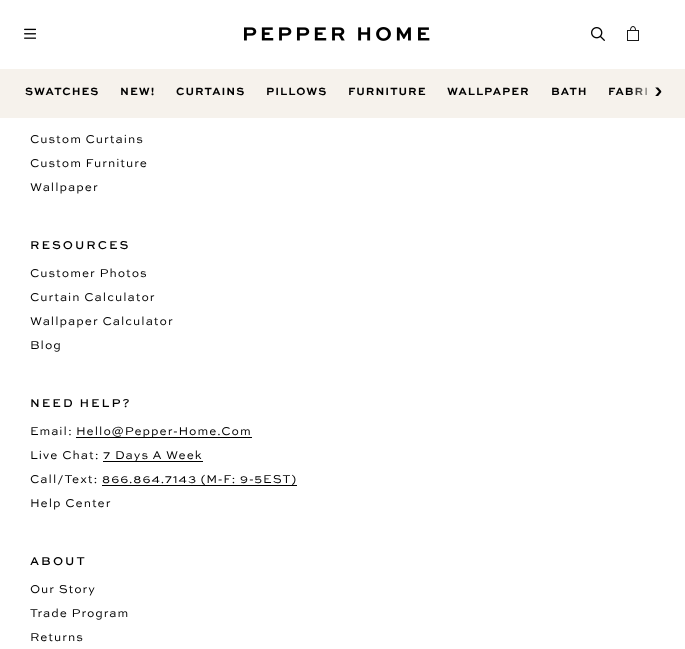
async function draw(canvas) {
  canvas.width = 685;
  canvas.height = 649;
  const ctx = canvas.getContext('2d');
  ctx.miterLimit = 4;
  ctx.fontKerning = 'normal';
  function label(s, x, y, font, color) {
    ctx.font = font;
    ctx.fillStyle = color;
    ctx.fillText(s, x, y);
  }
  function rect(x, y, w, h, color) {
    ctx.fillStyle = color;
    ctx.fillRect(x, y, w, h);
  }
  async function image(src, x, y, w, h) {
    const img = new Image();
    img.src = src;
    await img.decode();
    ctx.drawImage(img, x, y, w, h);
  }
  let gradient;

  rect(0, 0, 685, 649, '#fff');
  await image('assets/img1.png', 24, 28, 12, 11);
  await image('assets/img2.png', 244, 27, 186, 14);
  await image('assets/img3.png', 591, 27, 14, 14);
  await image('assets/img4.png', 627, 26, 12, 15);
  rect(0, 69, 685, 49, '#f6f2ec');
  ctx.letterSpacing = '1px';
  label('SWATCHES', 25, 95, 'bold 11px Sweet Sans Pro', '#000');
  label('NEW!', 120, 95, 'bold 11px Sweet Sans Pro', '#000');
  label('CURTAINS', 176, 95, 'bold 11px Sweet Sans Pro', '#000');
  label('PILLOWS', 266, 95, 'bold 11px Sweet Sans Pro', '#000');
  label('FURNITURE', 348, 95, 'bold 11px Sweet Sans Pro', '#000');
  label('WALLPAPER', 447, 95, 'bold 11px Sweet Sans Pro', '#000');
  label('BATH', 551, 95, 'bold 11px Sweet Sans Pro', '#000');
  label('FABRI', 608, 95, 'bold 11px Sweet Sans Pro', '#000');
  gradient = ctx.createLinearGradient(630, 91, 685, 91);
  gradient.addColorStop(0, '#f6f2ec00');
  gradient.addColorStop(0.5, '#f6f2ec');
  gradient.addColorStop(1, '#f6f2ec');
  ctx.fillStyle = gradient;
  ctx.fillRect(631, 87, 17, 8);
  ctx.letterSpacing = '0px';
  label('›', 653, 99, '30px Sweet Sans Pro', '#000');
  ctx.letterSpacing = '1px';
  label('Custom Curtains', 30, 143, '12px Sweet Sans Pro', '#000');
  label('Custom Furniture', 30, 167, '12px Sweet Sans Pro', '#000');
  label('Wallpaper', 30, 191, '12px Sweet Sans Pro', '#000');
  ctx.letterSpacing = '2px';
  label('RESOURCES', 30, 249, '500 12px Sweet Sans Pro', '#000');
  ctx.letterSpacing = '1px';
  label('Customer Photos', 30, 277, '12px Sweet Sans Pro', '#000');
  label('Curtain Calculator', 30, 301, '12px Sweet Sans Pro', '#000');
  label('Wallpaper Calculator', 30, 325, '12px Sweet Sans Pro', '#000');
  label('Blog', 30, 349, '12px Sweet Sans Pro', '#000');
  ctx.letterSpacing = '2px';
  label('NEED HELP?', 30, 407, '500 12px Sweet Sans Pro', '#000');
  ctx.letterSpacing = '1px';
  label('Email:', 30, 435, '12px Sweet Sans Pro', '#000');
  rect(76, 437, 176, 1, '#000');
  label('Hello@Pepper-Home.Com', 76, 435, '12px Sweet Sans Pro', '#000');
  label('Live Chat:', 30, 459, '12px Sweet Sans Pro', '#000');
  rect(103, 461, 100, 1, '#000');
  label('7 Days A Week', 103, 459, '12px Sweet Sans Pro', '#000');
  label('Call/Text: 866.864.7143 (M-F: 9-5EST)', 30, 483, '12px Sweet Sans Pro', '#000');
  rect(102, 485, 195, 1, '#000');
  label('Help Center', 30, 507, '12px Sweet Sans Pro', '#000');
  ctx.letterSpacing = '2px';
  label('ABOUT', 30, 565, '500 12px Sweet Sans Pro', '#000');
  ctx.letterSpacing = '1px';
  label('Our Story', 30, 593, '12px Sweet Sans Pro', '#000');
  label('Trade Program', 30, 617, '12px Sweet Sans Pro', '#000');
  label('Returns', 30, 641, '12px Sweet Sans Pro', '#000');
}

draw(document.querySelector('canvas'));
